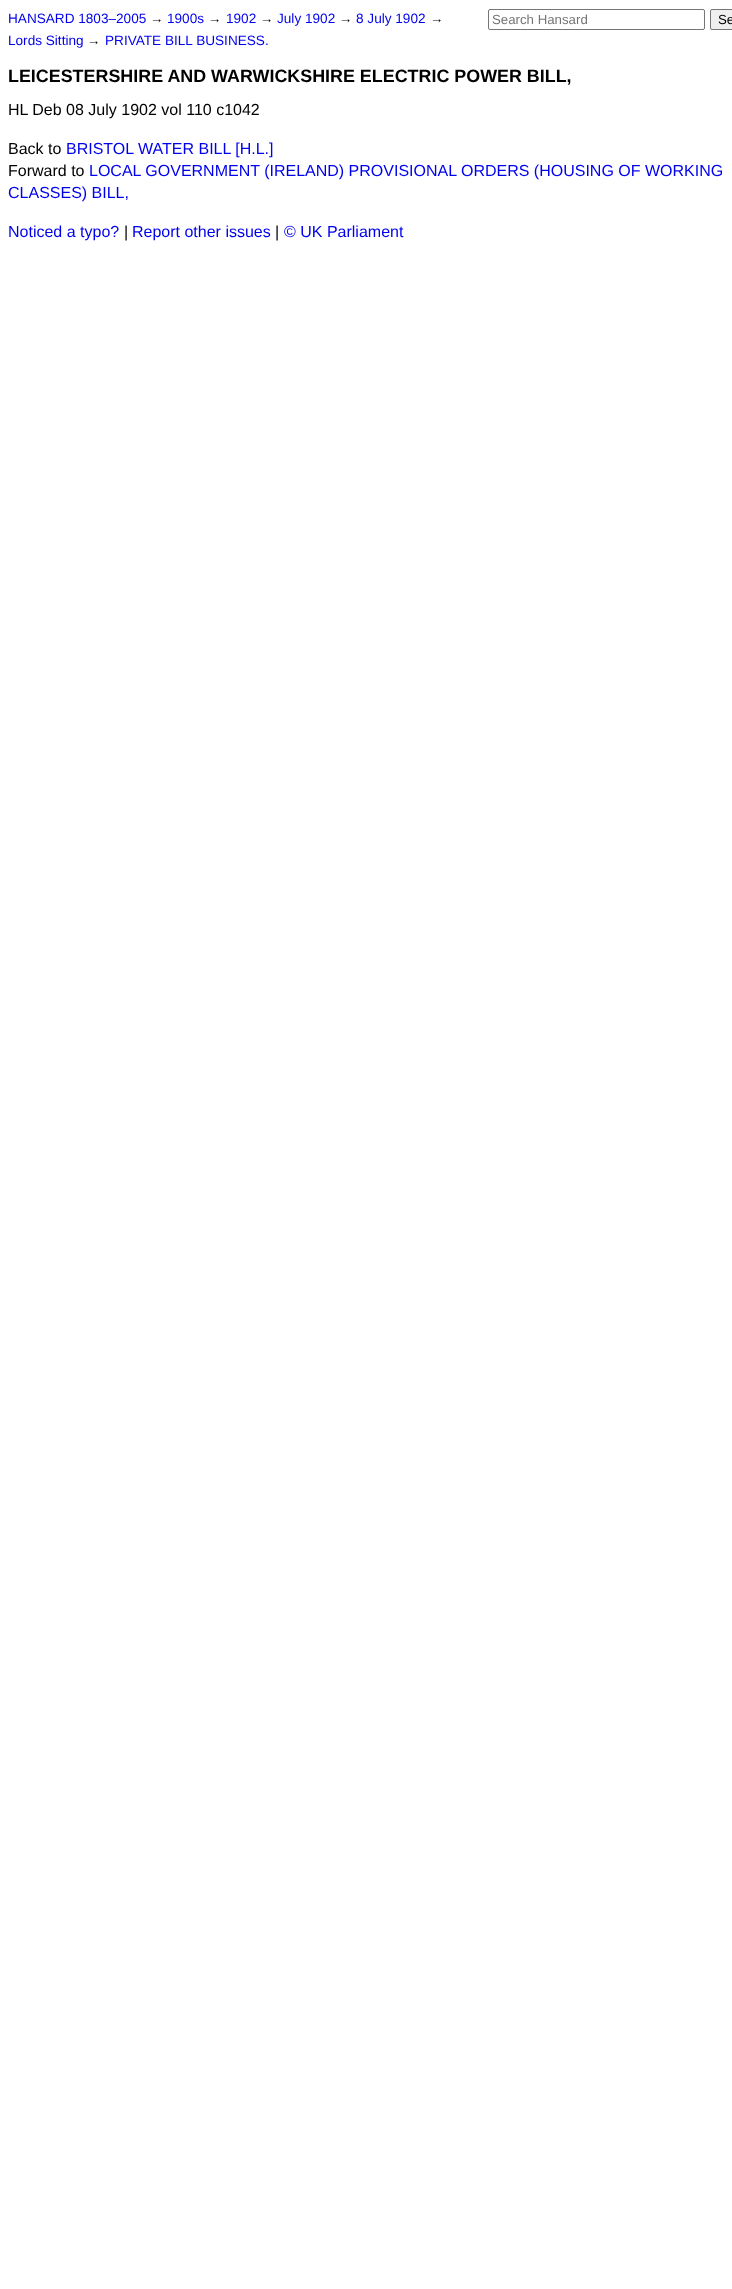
async function draw(canvas) {
  canvas.width = 732;
  canvas.height = 2289;
  const ctx = canvas.getContext('2d');
  ctx.miterLimit = 4;
  ctx.fontKerning = 'normal';
  function label(s, x, y, font, color) {
    ctx.font = font;
    ctx.fillStyle = color;
    ctx.fillText(s, x, y);
  }
  function rect(x, y, w, h, color) {
    ctx.fillStyle = color;
    ctx.fillRect(x, y, w, h);
  }

  rect(0, 0, 732, 2289, '#fff');
  label('HANSARD 1803–2005', 8, 23, '13.6px Liberation Sans', '#00e');
  label('→', 150, 23, '13.6px Liberation Sans', '#000');
  label('1900s', 167, 23, '13.6px Liberation Sans', '#00e');
  label('→', 208, 23, '13.6px Liberation Sans', '#000');
  label('1902', 226, 23, '13.6px Liberation Sans', '#00e');
  label('→', 260, 23, '13.6px Liberation Sans', '#000');
  label('July 1902', 277, 23, '13.6px Liberation Sans', '#00e');
  label('→', 339, 23, '13.6px Liberation Sans', '#000');
  label('8 July 1902', 356, 23, '13.6px Liberation Sans', '#00e');
  label('→', 430, 23, '13.6px Liberation Sans', '#000');
  label('Lords Sitting', 8, 45, '13.6px Liberation Sans', '#00e');
  label('→', 87, 45, '13.6px Liberation Sans', '#000');
  label('PRIVATE BILL BUSINESS.', 105, 45, '13.6px Liberation Sans', '#00e');
  ctx.beginPath();
  ctx.roundRect(488.5, 9.5, 216, 20, 1.5);
  ctx.strokeStyle = '#767676';
  ctx.stroke();
  label('Search Hansard', 492, 24, '13.25px Liberation Sans', '#757575');
  ctx.fillStyle = '#efefef';
  ctx.beginPath();
  ctx.roundRect(710.5, 9.5, 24, 20, 1.5);
  ctx.fill();
  ctx.stroke();
  label('Se', 718, 24, '13.25px Liberation Sans', '#000');
  label('LEICESTERSHIRE AND WARWICKSHIRE ELECTRIC POWER BILL,', 8, 82, 'bold 17.9px Liberation Sans', '#000');
  label('HL Deb 08 July 1902 vol 110 c1042', 8, 115, '16px Liberation Sans', '#000');
  label('Back to', 8, 154, '16px Liberation Sans', '#000');
  label('BRISTOL WATER BILL [H.L.]', 66, 154, '16px Liberation Sans', '#00e');
  label('Forward to', 8, 176, '16px Liberation Sans', '#000');
  label('LOCAL GOVERNMENT (IRELAND) PROVISIONAL ORDERS (HOUSING OF WORKING', 89, 176, '16px Liberation Sans', '#00e');
  label('CLASSES) BILL,', 8, 198, '16px Liberation Sans', '#00e');
  label('Noticed a typo?', 8, 237, '16px Liberation Sans', '#00e');
  label('|', 124, 237, '16px Liberation Sans', '#000');
  label('Report other issues', 132, 237, '16px Liberation Sans', '#00e');
  label('|', 275, 237, '16px Liberation Sans', '#000');
  label('© UK Parliament', 284, 237, '16px Liberation Sans', '#00e');
}

draw(document.querySelector('canvas'));
